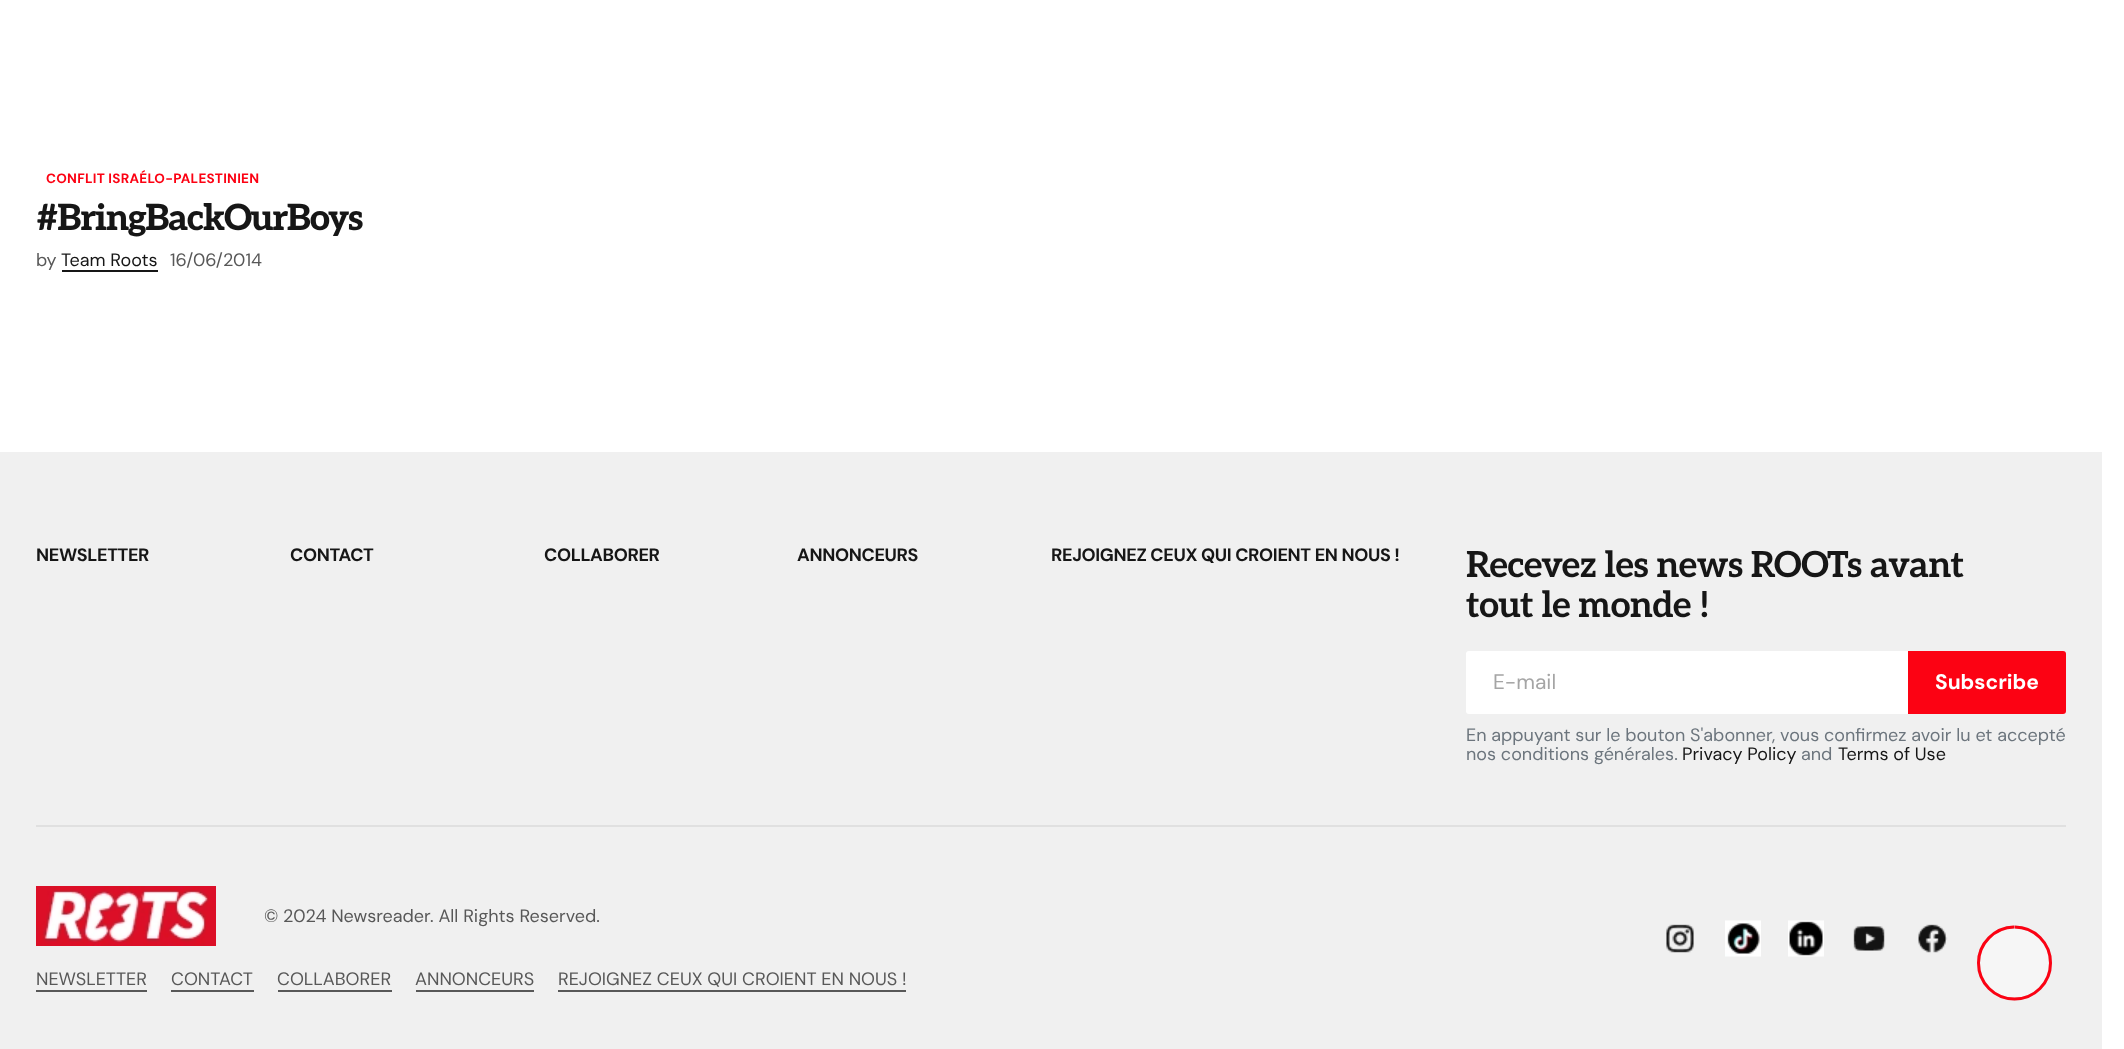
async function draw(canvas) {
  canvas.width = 2124;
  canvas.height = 1049;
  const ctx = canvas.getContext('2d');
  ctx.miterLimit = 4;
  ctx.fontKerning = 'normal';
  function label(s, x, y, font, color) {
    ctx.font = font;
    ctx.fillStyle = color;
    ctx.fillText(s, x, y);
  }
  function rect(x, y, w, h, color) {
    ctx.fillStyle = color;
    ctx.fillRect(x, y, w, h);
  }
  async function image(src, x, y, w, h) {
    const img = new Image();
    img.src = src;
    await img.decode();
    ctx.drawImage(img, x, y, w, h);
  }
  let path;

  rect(0, 0, 2124, 1049, '#fff');
  ctx.letterSpacing = '0.25px';
  label('CONFLIT ISRAÉLO-PALESTINIEN', 46, 183, 'bold 13.5px DM Sans', '#fc0213');
  ctx.letterSpacing = '-1.4px';
  label('#BringBackOurBoys', 36, 230, '800 36px Aleo', '#161616');
  ctx.letterSpacing = '0px';
  label('by', 36, 266, '18px DM Sans', '#585858');
  rect(62, 270, 96, 2, '#161616');
  label('Team Roots', 61, 266, '18px DM Sans', '#161616');
  label('16/06/2014', 170, 266, '18px DM Sans', '#585858');
  rect(0, 452, 2102, 597, '#f0f0f0');
  rect(36, 825, 2030, 2, '#e0e0e0');
  ctx.letterSpacing = '-0.35px';
  label('NEWSLETTER', 36, 561, 'bold 18px DM Sans', '#161616');
  label('CONTACT', 290, 561, 'bold 18px DM Sans', '#161616');
  label('COLLABORER', 544, 561, 'bold 18px DM Sans', '#161616');
  label('ANNONCEURS', 797, 561, 'bold 18px DM Sans', '#161616');
  label('REJOIGNEZ CEUX QUI CROIENT EN NOUS !', 1051, 561, 'bold 18px DM Sans', '#161616');
  ctx.letterSpacing = '-0.75px';
  label('Recevez les news ROOTs avant', 1466, 577, 'bold 36px Aleo', '#161616');
  label('tout le monde !', 1466, 617, 'bold 36px Aleo', '#161616');
  ctx.fillStyle = '#fff';
  ctx.beginPath();
  ctx.roundRect(1466, 651, 442, 63, [3, 0, 0, 3]);
  ctx.fill();
  ctx.letterSpacing = '0px';
  label('E-mail', 1493, 689, '21px DM Sans', '#a5a5a5');
  ctx.fillStyle = '#fc0213';
  ctx.beginPath();
  ctx.roundRect(1908, 651, 158, 63, [0, 3, 3, 0]);
  ctx.fill();
  label('Subscribe', 1935, 689, 'bold 21px DM Sans', '#fff');
  label('En appuyant sur le bouton S\'abonner, vous confirmez avoir lu et accepté', 1466, 741, '18px DM Sans', '#6c757d');
  label('nos conditions générales.', 1466, 760, '18px DM Sans', '#6c757d');
  label('Privacy Policy', 1682, 760, '18px DM Sans', '#161616');
  label('and', 1801, 760, '18px DM Sans', '#6c757d');
  label('Terms of Use', 1838, 760, '18px DM Sans', '#161616');
  await image('assets/img1.png', 36, 886, 180, 60);
  label('© 2024 Newsreader. All Rights Reserved.', 264, 922, '18px DM Sans', '#585858');
  label('NEWSLETTER', 36, 985, '18px DM Sans', '#585858');
  rect(36, 990, 111, 2, '#585858');
  label('CONTACT', 171, 985, '18px DM Sans', '#585858');
  rect(171, 990, 83, 2, '#585858');
  label('COLLABORER', 277, 985, '18px DM Sans', '#585858');
  rect(278, 990, 114, 2, '#585858');
  label('ANNONCEURS', 415, 985, '18px DM Sans', '#585858');
  rect(416, 990, 118, 2, '#585858');
  label('REJOIGNEZ CEUX QUI CROIENT EN NOUS !', 558, 985, '18px DM Sans', '#585858');
  rect(558, 990, 348, 2, '#585858');
  await image('assets/img2.png', 1666, 924, 28, 29);
  await image('assets/img3.png', 1725, 920, 36, 37);
  await image('assets/img4.png', 1788, 920, 36, 37);
  await image('assets/img5.png', 1853, 926, 32, 25);
  await image('assets/img6.png', 1918, 924, 30, 29);
  ctx.fillStyle = '#f6f6f6';
  ctx.beginPath();
  ctx.arc(2015, 963, 36, 0, 2 * Math.PI);
  ctx.fill();
  path = new Path2D('M2014.5 927C2034.5 927 2050.5 943 2050.5 963C2050.5 983 2034.5 999 2014.5 999C1994.5 999 1978.5 983 1978.5 963C1978.5 943 1994.5 927 2014.5 927');
  ctx.strokeStyle = '#d9d9d9';
  ctx.lineWidth = 3;
  ctx.stroke(path);
  path = new Path2D('M2014.5 927C2034.5 927 2050.5 943 2050.5 963C2050.5 983 2034.5 999 2014.5 999C1994.5 999 1978.5 983 1978.5 963C1978.5 943.5 1994.5 927.5 2014 927');
  ctx.strokeStyle = '#fc0213';
  ctx.stroke(path);
}

draw(document.querySelector('canvas'));
